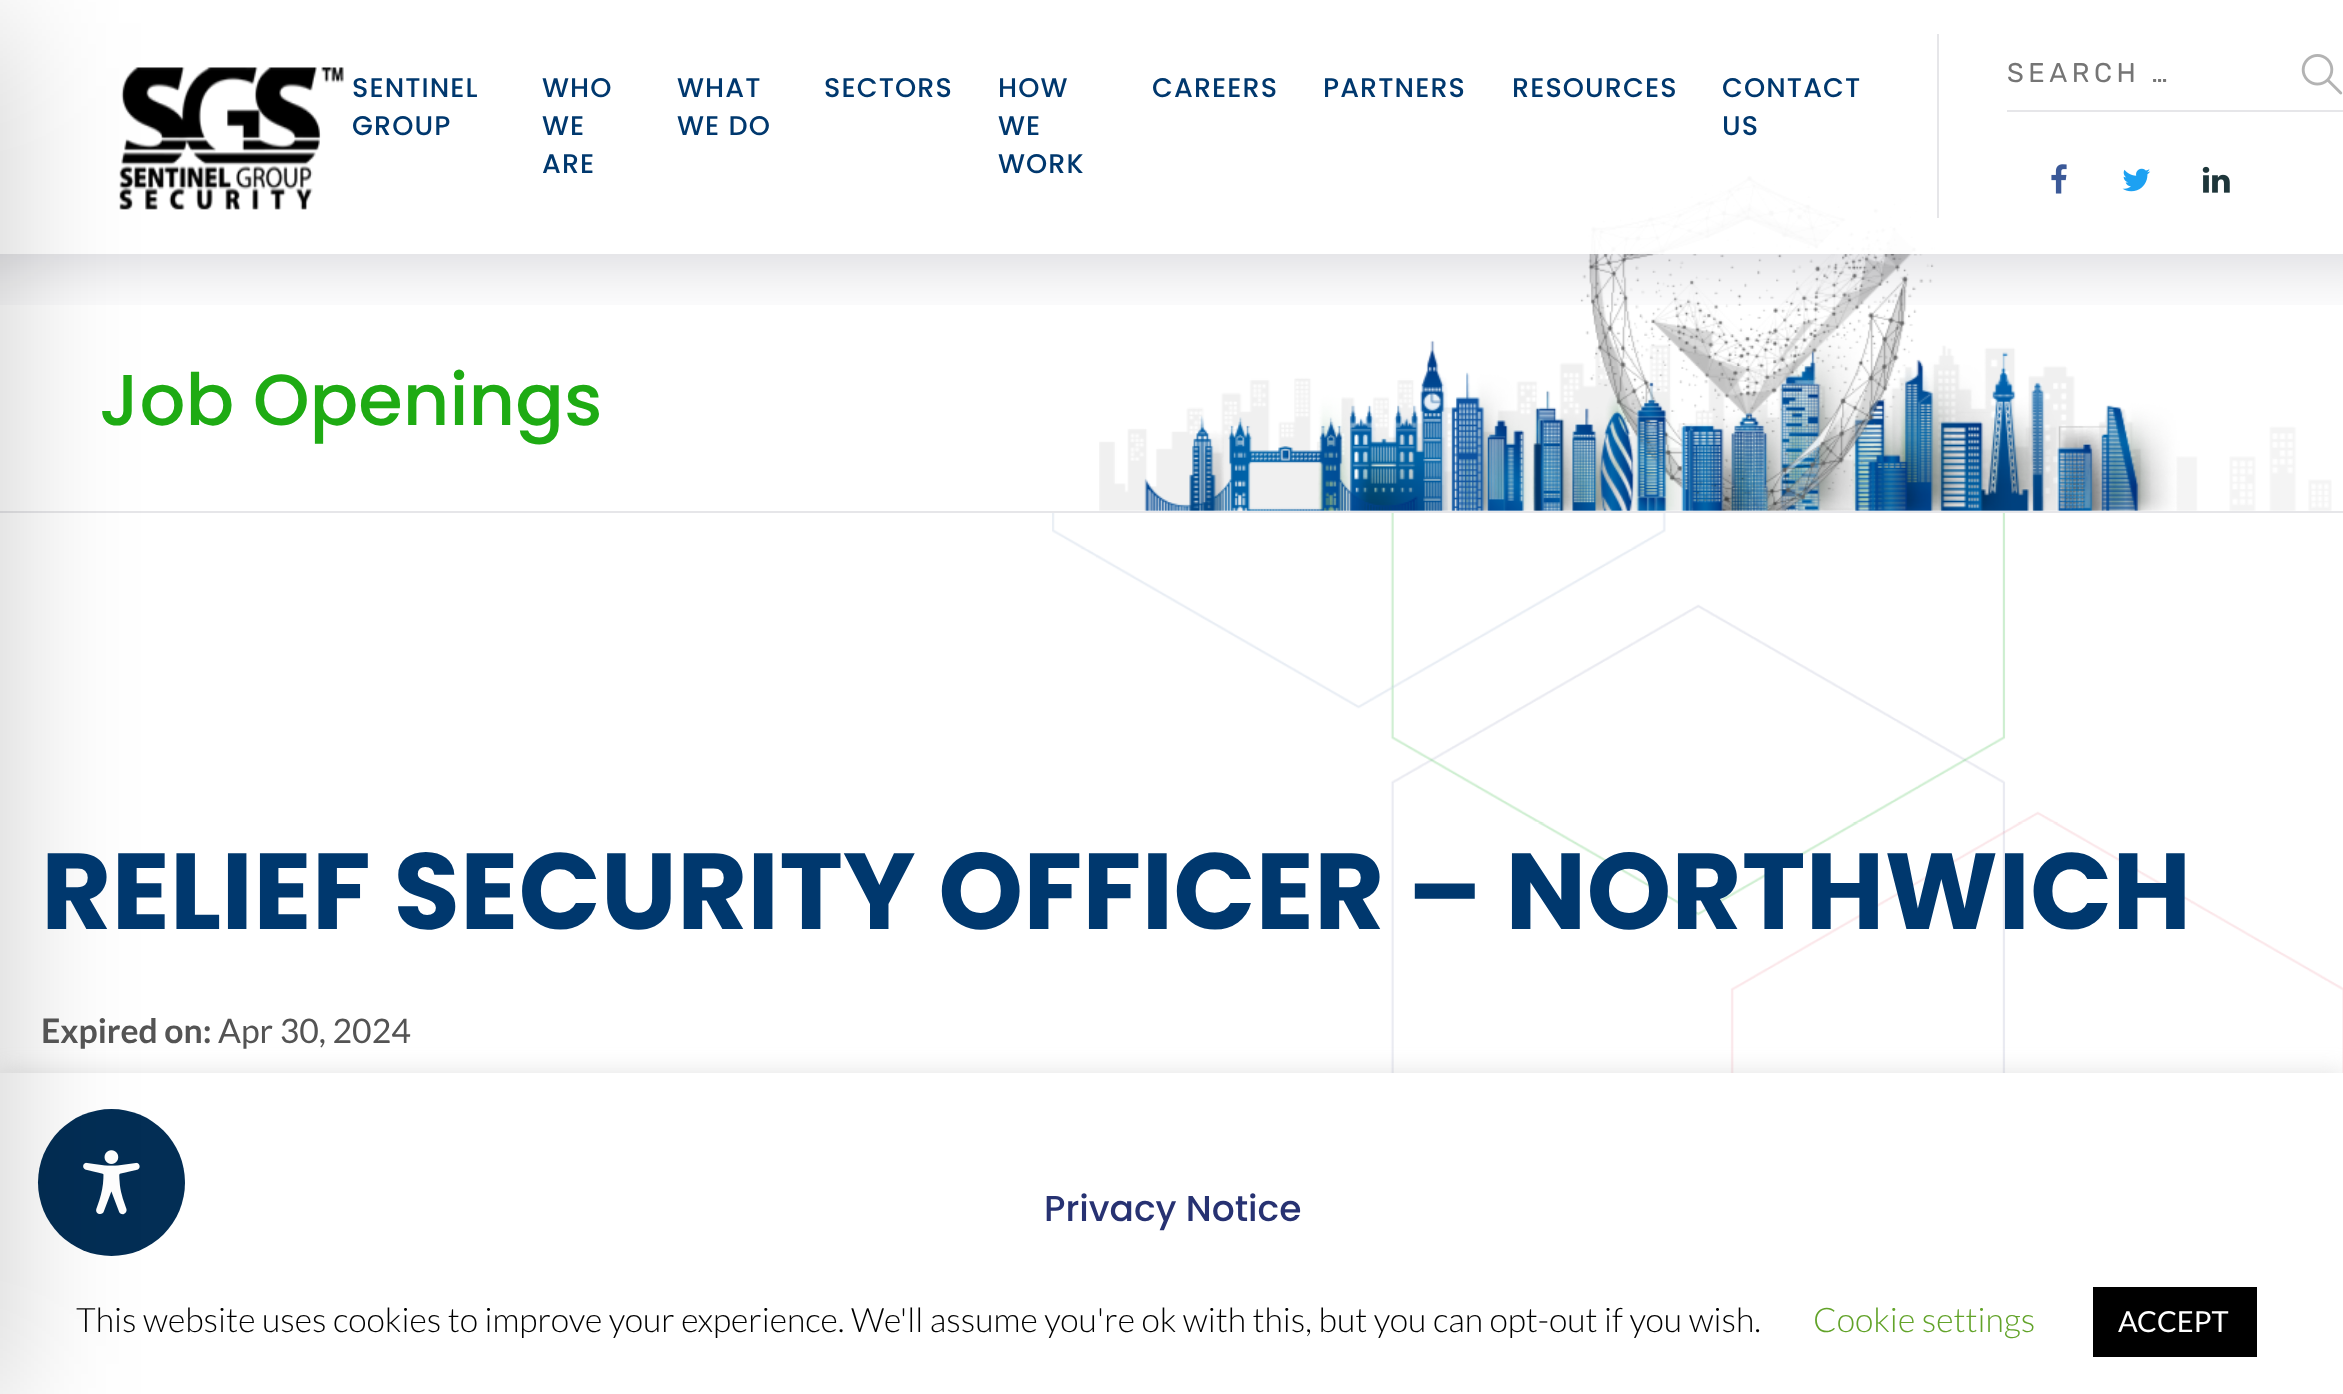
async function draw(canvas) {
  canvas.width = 2343;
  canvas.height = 1394;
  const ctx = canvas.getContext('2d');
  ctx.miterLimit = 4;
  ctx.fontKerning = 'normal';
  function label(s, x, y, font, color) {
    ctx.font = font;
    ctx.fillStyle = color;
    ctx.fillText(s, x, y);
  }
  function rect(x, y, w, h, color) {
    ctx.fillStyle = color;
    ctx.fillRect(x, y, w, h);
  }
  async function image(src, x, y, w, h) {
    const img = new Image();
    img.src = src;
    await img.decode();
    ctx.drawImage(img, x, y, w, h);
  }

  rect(0, 0, 2343, 1394, '#fff');
  await image('assets/img7.png', 1099, 175, 1233, 336);
  ctx.save();
  ctx.beginPath();
  ctx.rect(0, 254, 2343, 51);
  ctx.clip();
  ctx.fillStyle = '#02062033';
  ctx.filter = 'blur(39.5px)';
  ctx.beginPath();
  ctx.rect(-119, 0, 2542, 254);
  ctx.fill();
  ctx.filter = 'none';
  ctx.restore();
  await image('assets/img2.png', 119, 67, 225, 143);
  rect(0, 511, 2343, 2, '#e6e6e9');
  await image('assets/img1.png', 1052, 513, 1291, 560);
  ctx.fillStyle = '#acabab4d';
  ctx.filter = 'blur(11px)';
  ctx.beginPath();
  ctx.rect(0, 1071, 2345, 322);
  ctx.fill();
  ctx.filter = 'none';
  rect(0, 1073, 2343, 321, '#fff');
  ctx.fillStyle = '#032e55';
  ctx.beginPath();
  ctx.arc(111.5, 1182.5, 73.5, 0, 2 * Math.PI);
  ctx.fill();
  await image('assets/img8.png', 83, 1150, 57, 65);
  ctx.fillStyle = '#00000033';
  ctx.filter = 'blur(67.5px)';
  ctx.beginPath();
  ctx.rect(-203, 23, 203, 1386);
  ctx.fill();
  ctx.filter = 'none';
  rect(1588, 175, 346, 79, '#fffffff2');
  rect(1937, 34, 2, 184, '#e6e6e9');
  rect(2007, 110, 336, 2, '#e6e6e9');
  ctx.letterSpacing = '4.5px';
  label('SEARCH …', 2007, 82, '27px Rubik', '#757575');
  await image('assets/img3.png', 2301, 54, 42, 41);
  await image('assets/img4.png', 2051, 164, 16, 30);
  await image('assets/img5.png', 2122, 168, 29, 24);
  await image('assets/img6.png', 2202, 166, 28, 27);
  ctx.letterSpacing = '1.1px';
  label('SENTINEL', 352, 97, '500 27px Poppins', '#00386e');
  label('GROUP', 352, 135, '500 27px Poppins', '#00386e');
  label('WHO', 542, 97, '500 27px Poppins', '#00386e');
  label('WE', 542, 135, '500 27px Poppins', '#00386e');
  label('ARE', 542, 173, '500 27px Poppins', '#00386e');
  label('WHAT', 677, 97, '500 27px Poppins', '#00386e');
  label('WE DO', 677, 135, '500 27px Poppins', '#00386e');
  label('SECTORS', 824, 97, '500 27px Poppins', '#00386e');
  label('HOW', 998, 97, '500 27px Poppins', '#00386e');
  label('WE', 998, 135, '500 27px Poppins', '#00386e');
  label('WORK', 998, 173, '500 27px Poppins', '#00386e');
  label('CAREERS', 1152, 97, '500 27px Poppins', '#00386e');
  label('PARTNERS', 1323, 97, '500 27px Poppins', '#00386e');
  label('RESOURCES', 1512, 97, '500 27px Poppins', '#00386e');
  label('CONTACT', 1722, 97, '500 27px Poppins', '#00386e');
  label('US', 1722, 135, '500 27px Poppins', '#00386e');
  ctx.letterSpacing = '0px';
  label('Job Openings', 99, 425, '500 72px Poppins', '#1eab13');
  label('RELIEF SECURITY OFFICER – NORTHWICH', 41, 929, 'bold 108px Poppins', '#00386e');
  label('Expired on:', 41, 1043, 'bold 33.75px Lato', '#545454');
  label('Apr 30, 2024', 218, 1043, '33.75px Lato', '#545454');
  label('Privacy Notice', 1044, 1221, '500 36px Poppins', '#273272');
  label('This website uses cookies to improve your experience. We\'ll assume you\'re ok with this, but you can opt-out if you wish.', 76, 1332, '300 33.75px Lato', '#000');
  label('Cookie settings', 1813, 1332, '300 33.75px Lato', '#62a329');
  rect(2093, 1287, 164, 70, '#000');
  label('ACCEPT', 2118, 1332, '29px Lato', '#fff');
}

draw(document.querySelector('canvas'));
